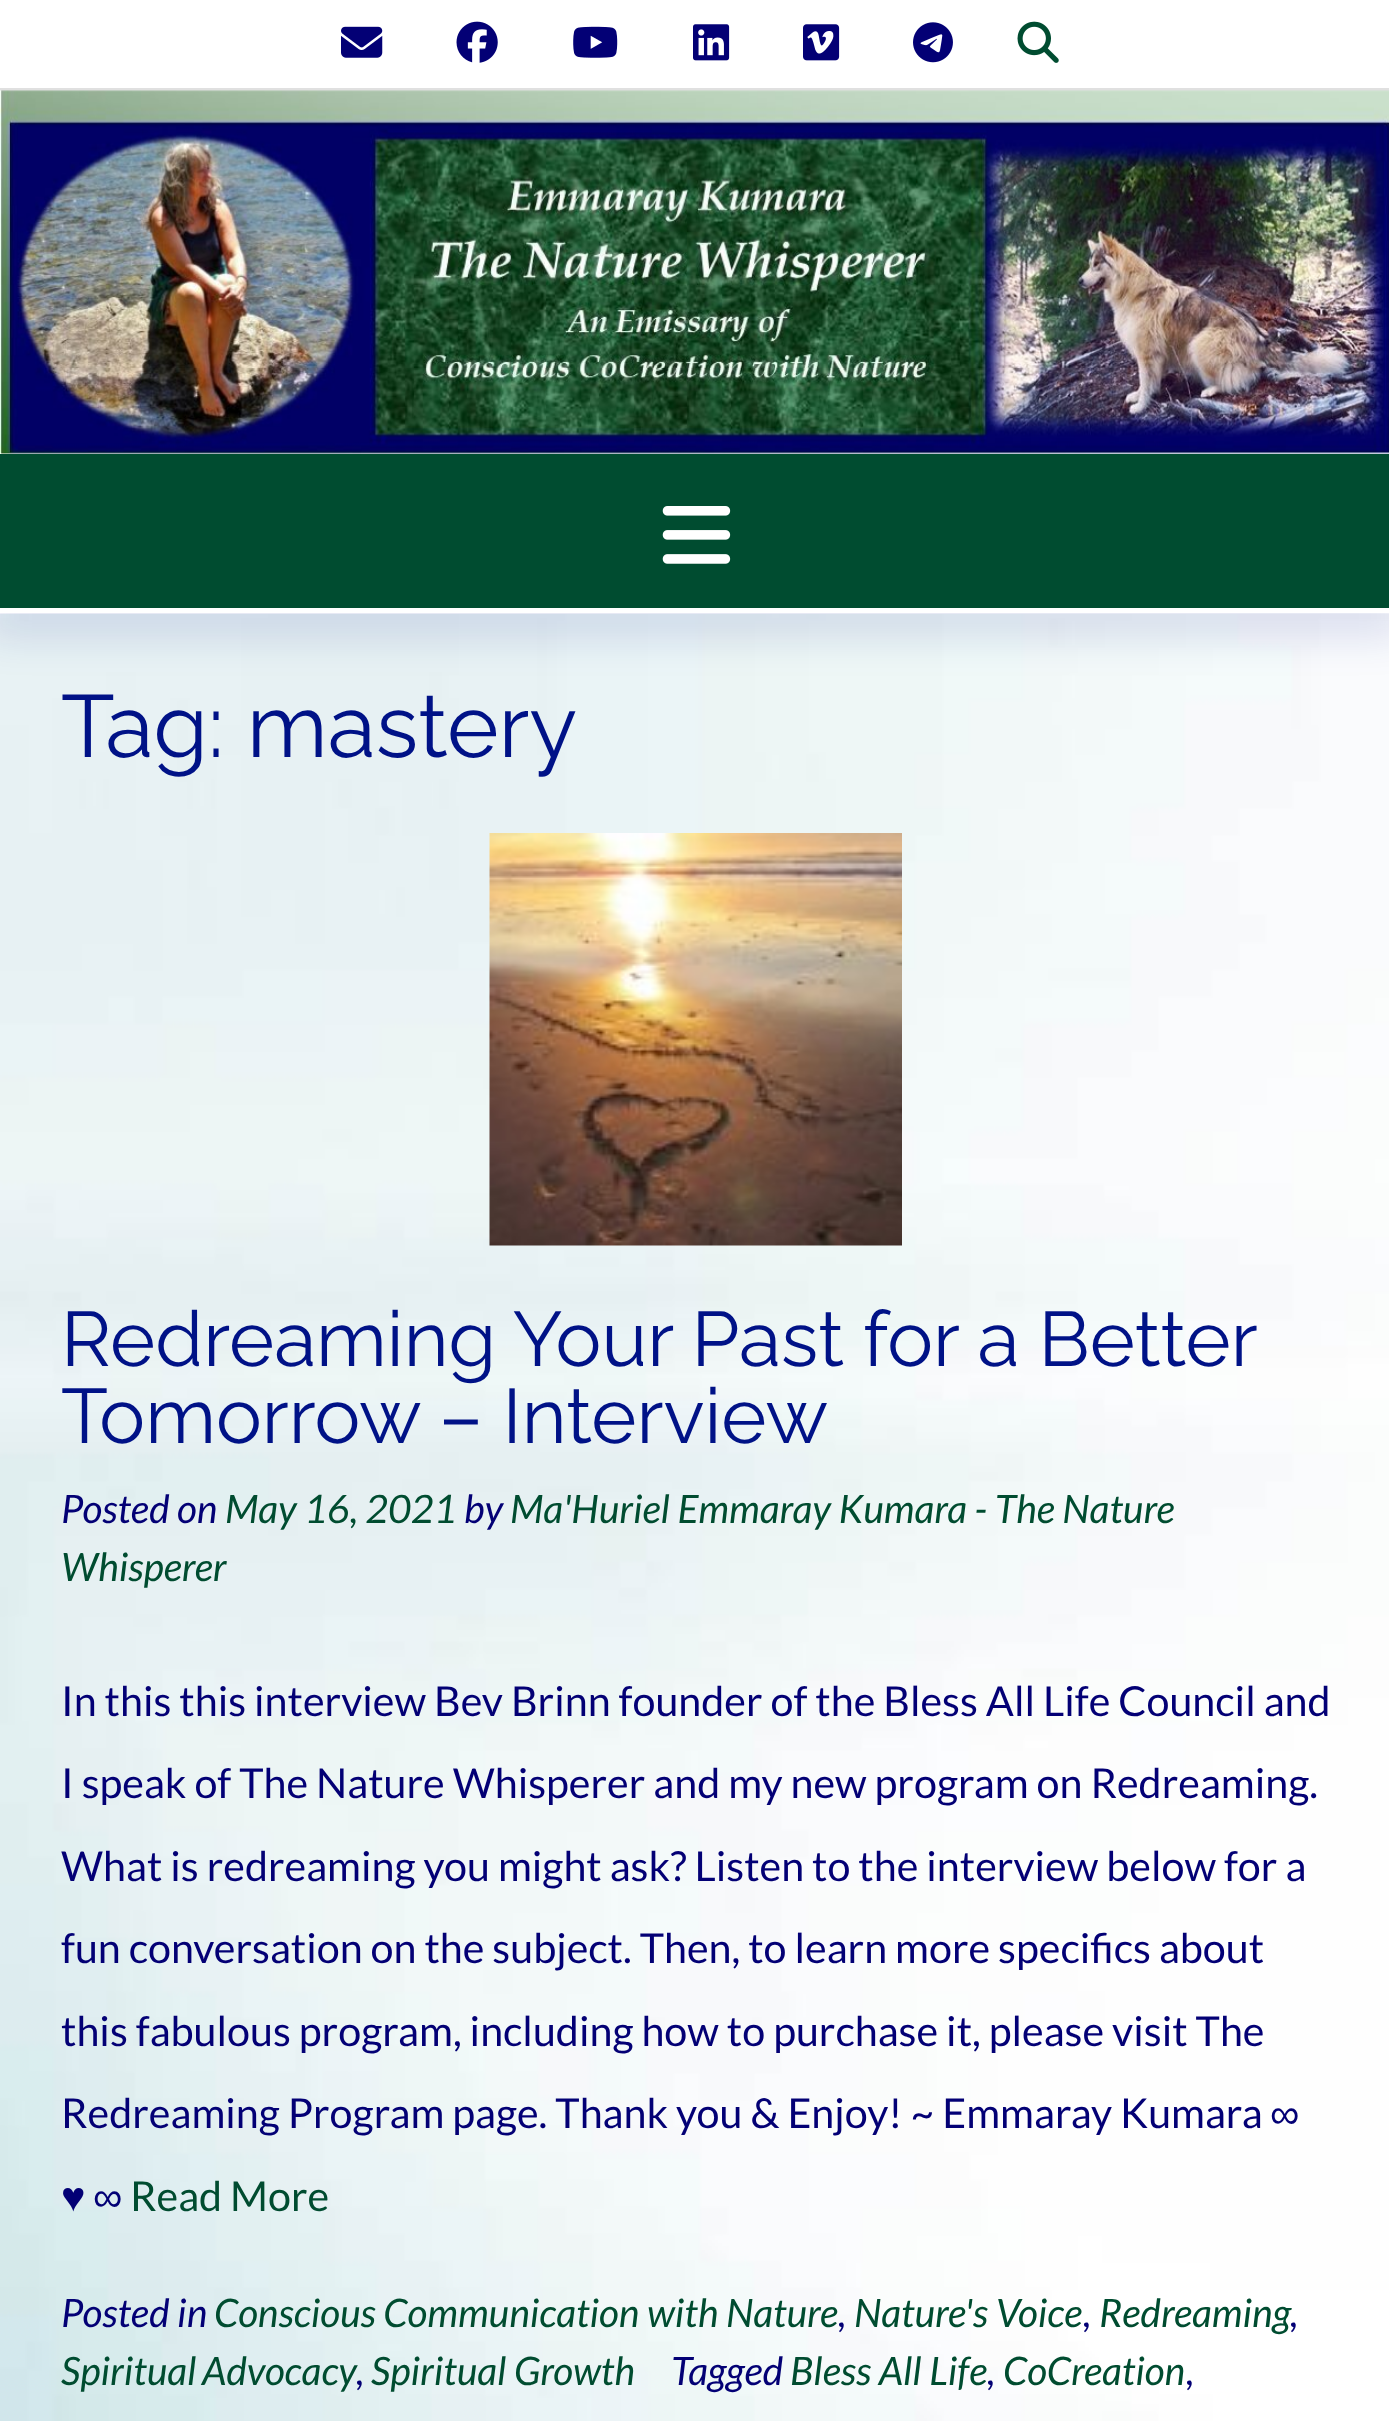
async function draw(canvas) {
  canvas.width = 1389;
  canvas.height = 2421;
  const ctx = canvas.getContext('2d');
  ctx.miterLimit = 4;
  ctx.fontKerning = 'normal';
  function label(s, x, y, font, color) {
    ctx.font = font;
    ctx.fillStyle = color;
    ctx.fillText(s, x, y);
  }
  function rect(x, y, w, h, color) {
    ctx.fillStyle = color;
    ctx.fillRect(x, y, w, h);
  }
  async function image(src, x, y, w, h) {
    const img = new Image();
    img.src = src;
    await img.decode();
    ctx.drawImage(img, x, y, w, h);
  }

  rect(0, 0, 1389, 2421, '#fff');
  await image('assets/img1.png', 0, 614, 1389, 1807);
  rect(0, 88, 1389, 3, '#e0e0e0');
  await image('assets/img2.png', 341, 26, 42, 32);
  await image('assets/img3.png', 456, 21, 42, 42);
  await image('assets/img4.png', 573, 26, 45, 32);
  await image('assets/img5.png', 693, 24, 37, 37);
  await image('assets/img6.png', 803, 24, 37, 37);
  await image('assets/img7.png', 913, 22, 40, 41);
  await image('assets/img8.png', 1017, 21, 42, 42);
  await image('assets/img9.png', 0, 90, 1389, 364);
  rect(0, 454, 1389, 154, '#004c30');
  await image('assets/img10.png', 662, 506, 69, 58);
  ctx.save();
  ctx.beginPath();
  ctx.rect(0, 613, 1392, 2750);
  ctx.clip();
  ctx.fillStyle = '#0b229333';
  ctx.filter = 'blur(22px)';
  ctx.beginPath();
  ctx.rect(-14, 602, 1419, 28);
  ctx.fill();
  ctx.filter = 'none';
  ctx.restore();
  label('Tag: mastery', 61, 757, '88px Raleway', '#001287');
  await image('assets/img11.png', 489, 833, 413, 413);
  ctx.wordSpacing = '-0.5px';
  label('Redreaming Your Past for a Better', 61, 1366, '77px Raleway', '#001287');
  ctx.wordSpacing = '0px';
  label('Tomorrow – Interview', 61, 1443, '77px Raleway', '#001287');
  label('Posted on', 61, 1523, 'italic 39.2px Lato', '#030075');
  label('May 16, 2021', 225, 1523, 'italic 39.2px Lato', '#004c30');
  label('by', 464, 1523, 'italic 39.2px Lato', '#030075');
  label('Ma\'Huriel Emmaray Kumara - The Nature', 510, 1523, 'italic 39.2px Lato', '#004c30');
  label('Whisperer', 61, 1581, 'italic 39.2px Lato', '#004c30');
  label('In this this interview Bev Brinn founder of the Bless All Life Council and', 61, 1716, '41.25px Lato', '#030075');
  label('I speak of The Nature Whisperer and my new program on Redreaming.', 61, 1798, '41.25px Lato', '#030075');
  label('What is redreaming you might ask? Listen to the interview below for a', 61, 1881, '41.25px Lato', '#030075');
  label('fun conversation on the subject. Then, to learn more specifics about', 61, 1963, '41.25px Lato', '#030075');
  label('this fabulous program, including how to purchase it, please visit The', 61, 2046, '41.25px Lato', '#030075');
  label('Redreaming Program page. Thank you & Enjoy! ~ Emmaray Kumara', 61, 2128, '41.25px Lato', '#030075');
  label('∞', 1270, 2128, '41.25px Liberation Sans', '#030075');
  ctx.wordSpacing = '-4px';
  label('♥ ∞', 61, 2211, '41.25px Liberation Sans', '#030075');
  ctx.wordSpacing = '0px';
  label('Read More', 130, 2211, '41.25px Lato', '#004c30');
  label('Posted in', 61, 2327, 'italic 39.2px Lato', '#030075');
  label('Conscious Communication with Nature', 214, 2327, 'italic 39.2px Lato', '#004c30');
  label(',', 838, 2327, 'italic 39.2px Lato', '#030075');
  label('Nature\'s Voice', 854, 2327, 'italic 39.2px Lato', '#004c30');
  label(',', 1083, 2327, 'italic 39.2px Lato', '#030075');
  label('Redreaming', 1099, 2327, 'italic 39.2px Lato', '#004c30');
  label(',', 1290, 2327, 'italic 39.2px Lato', '#030075');
  ctx.wordSpacing = '-2px';
  label('Spiritual Advocacy', 61, 2385, 'italic 39.2px Lato', '#004c30');
  ctx.wordSpacing = '0px';
  label(',', 356, 2385, 'italic 39.2px Lato', '#030075');
  label('Spiritual Growth', 371, 2385, 'italic 39.2px Lato', '#004c30');
  label('Tagged', 671, 2385, 'italic 39.2px Lato', '#030075');
  label('Bless All Life', 790, 2385, 'italic 39.2px Lato', '#004c30');
  label(',', 987, 2385, 'italic 39.2px Lato', '#030075');
  label('CoCreation', 1003, 2385, 'italic 39.2px Lato', '#004c30');
  label(',', 1186, 2385, 'italic 39.2px Lato', '#030075');
}

draw(document.querySelector('canvas'));
